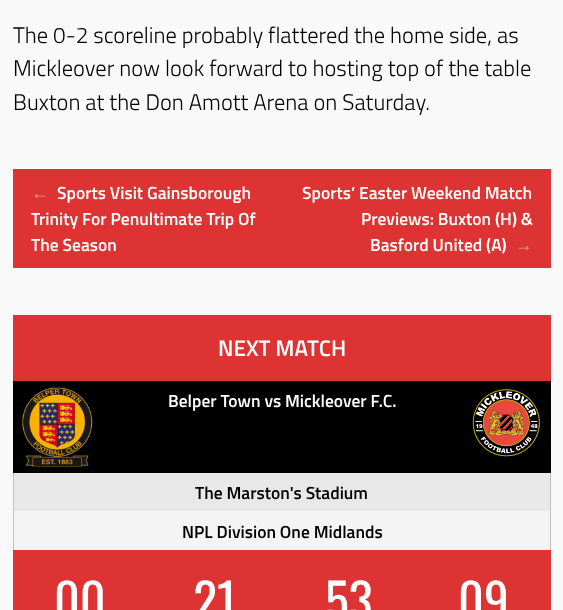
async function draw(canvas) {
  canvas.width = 563;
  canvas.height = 610;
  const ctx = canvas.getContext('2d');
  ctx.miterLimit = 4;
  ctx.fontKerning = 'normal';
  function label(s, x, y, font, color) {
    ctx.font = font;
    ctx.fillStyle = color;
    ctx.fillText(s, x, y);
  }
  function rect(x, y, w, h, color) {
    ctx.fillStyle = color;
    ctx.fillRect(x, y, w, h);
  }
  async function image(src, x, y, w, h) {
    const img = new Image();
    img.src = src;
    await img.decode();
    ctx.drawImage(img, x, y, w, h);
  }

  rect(0, 0, 563, 610, '#f9f9f9');
  label('The 0-2 scoreline probably flattered the home side, as', 13, 43, '300 22.5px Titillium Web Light', '#000');
  label('Mickleover now look forward to hosting top of the table', 13, 76, '300 22.5px Titillium Web Light', '#000');
  label('Buxton at the Don Amott Arena on Saturday.', 13, 110, '300 22.5px Titillium Web Light', '#000');
  rect(13, 169, 538, 99, '#d33');
  label('←', 31, 199, 'bold 17.5px Liberation Sans', '#e99');
  label('Sports Visit Gainsborough', 57, 199, '600 17.5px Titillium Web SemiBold', '#fff');
  label('Trinity For Penultimate Trip Of', 31, 225, '600 17.5px Titillium Web SemiBold', '#fff');
  label('The Season', 31, 251, '600 17.5px Titillium Web SemiBold', '#fff');
  label('Sports’ Easter Weekend Match', 302, 199, '600 17.5px Titillium Web SemiBold', '#fff');
  label('Previews: Buxton (H) &', 361, 225, '600 17.5px Titillium Web SemiBold', '#fff');
  label('Basford United (A)', 370, 251, '600 17.5px Titillium Web SemiBold', '#fff');
  label('→', 515, 251, 'bold 17.5px Liberation Sans', '#e99');
  rect(13, 315, 538, 66, '#d33');
  label('NEXT MATCH', 218, 356, '600 22.5px Titillium Web SemiBold', '#fff');
  rect(13, 550, 538, 60, '#d33');
  rect(13, 381, 538, 92, '#000');
  await image('assets/img1.png', 22, 387, 71, 80);
  label('Belper Town vs Mickleover F.C.', 168, 407, '600 17.5px Titillium Web SemiBold', '#fff');
  await image('assets/img2.png', 472, 389, 68, 68);
  rect(14, 473, 536, 38, '#e8e8e8');
  rect(550, 473, 1, 77, '#c0c0c0');
  rect(13, 473, 1, 77, '#c0c0c0');
  label('The Marston\'s Stadium', 195, 499, '600 17.5px Titillium Web SemiBold', '#000');
  rect(14, 511, 536, 39, '#f4f4f4');
  label('NPL Division One Midlands', 182, 538, '600 17.5px Titillium Web SemiBold', '#000');
  label('00', 54, 621, '50px Oswald', '#fff');
  label('21', 193, 621, '50px Oswald', '#fff');
  label('53', 325, 621, '50px Oswald', '#fff');
  label('09', 458, 621, '50px Oswald', '#fff');
}

draw(document.querySelector('canvas'));
